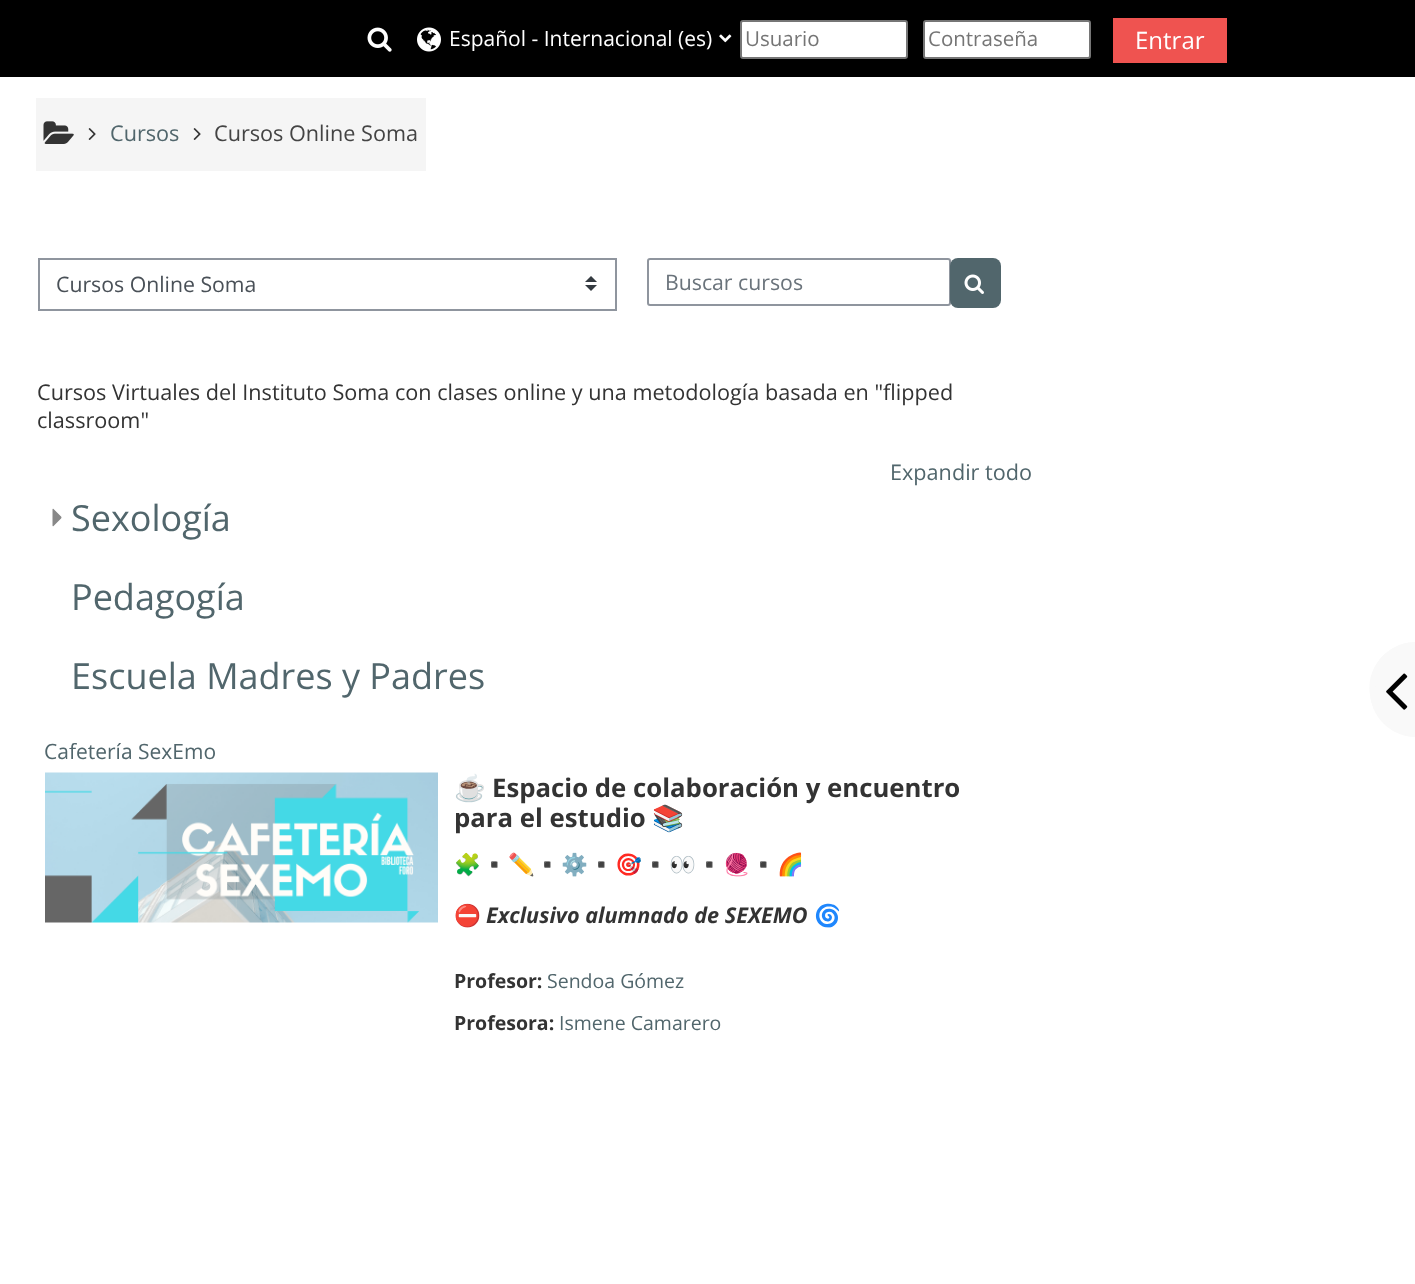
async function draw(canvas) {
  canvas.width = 1415;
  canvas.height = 1284;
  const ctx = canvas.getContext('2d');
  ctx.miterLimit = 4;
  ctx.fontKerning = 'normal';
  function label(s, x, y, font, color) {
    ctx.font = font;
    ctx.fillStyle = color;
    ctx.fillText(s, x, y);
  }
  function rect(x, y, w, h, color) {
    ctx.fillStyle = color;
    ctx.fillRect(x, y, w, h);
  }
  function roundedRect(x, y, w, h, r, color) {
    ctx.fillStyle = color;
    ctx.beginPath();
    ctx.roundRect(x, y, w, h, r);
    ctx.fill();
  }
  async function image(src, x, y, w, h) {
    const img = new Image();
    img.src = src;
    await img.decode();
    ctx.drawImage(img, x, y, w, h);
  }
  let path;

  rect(0, 0, 1415, 1284, '#fff');
  rect(0, 0, 1415, 77, '#000');
  await image('assets/img1.png', 367, 27, 25, 25);
  await image('assets/img2.png', 417, 27, 24, 25);
  label('Español - Internacional (es)', 449, 46, '21px Open Sans', '#fff');
  await image('assets/img3.png', 719, 34, 13, 9);
  ctx.beginPath();
  ctx.roundRect(741, 21, 166, 37, 2);
  ctx.fill();
  ctx.strokeStyle = '#767676';
  ctx.lineWidth = 2;
  ctx.stroke();
  label('Usuario', 745, 46, '20.5px Open Sans', '#757575');
  ctx.fillStyle = '#fff';
  ctx.beginPath();
  ctx.roundRect(924, 21, 166, 37, 2);
  ctx.fill();
  ctx.stroke();
  label('Contraseña', 928, 46, '20.5px Open Sans', '#757575');
  rect(1113, 18, 114, 45, '#ef5350');
  label('Entrar', 1135, 49, '24px Open Sans', '#fff');
  rect(36, 98, 390, 73, '#f5f5f5');
  await image('assets/img4.png', 43, 121, 31, 23);
  await image('assets/img5.png', 88, 128, 8, 12);
  label('Cursos', 110, 141, '21.65px Open Sans', '#51666c');
  await image('assets/img5.png', 193, 128, 8, 12);
  label('Cursos Online Soma', 214, 141, '21.65px Open Sans', '#444');
  await image('assets/img6.png', 585, 276, 12, 15);
  ctx.strokeStyle = '#8f959e';
  ctx.strokeRect(39, 259, 577, 51);
  label('Cursos Online Soma', 56, 292, '21.25px Open Sans', '#495057');
  ctx.beginPath();
  ctx.roundRect(648, 259, 302, 46, 2);
  ctx.stroke();
  label('Buscar cursos', 665, 290, '21.25px Open Sans', '#6a737b');
  roundedRect(950, 258, 51, 50, 8, '#51666c');
  await image('assets/img7.png', 964, 274, 20, 20);
  label('Cursos Virtuales del Instituto Soma con clases online y una metodología basada en "flipped', 37, 400, '21.65px Open Sans', '#333');
  label('classroom"', 37, 428, '21.65px Open Sans', '#333');
  label('Expandir todo', 890, 480, '21.65px Open Sans', '#51666c');
  await image('assets/img8.png', 52, 508, 10, 19);
  label('Sexología', 71, 531, '36px Open Sans', '#51666c');
  label('Pedagogía', 71, 610, '36px Open Sans', '#51666c');
  label('Escuela Madres y Padres', 71, 689, '36px Open Sans', '#51666c');
  label('Cafetería SexEmo', 44, 759, '21px Open Sans', '#51666c');
  await image('assets/img9.png', 45, 772, 393, 151);
  label('☕️', 454, 797, 'bold 25.75px Noto Color Emoji', '#333');
  label('Espacio de colaboración y encuentro', 492, 797, 'bold 25.75px Open Sans', '#333');
  label('para el estudio', 454, 827, 'bold 25.75px Open Sans', '#333');
  label('📚', 652, 827, 'bold 25.75px Noto Color Emoji', '#333');
  label('🧩▪️✏️▪️⚙️▪️🎯▪️👀▪️🧶▪️🌈', 454, 872, '21.65px Noto Color Emoji', '#333');
  label('⛔️', 454, 923, 'bold 21.65px Noto Color Emoji', '#333');
  label('Exclusivo alumnado de SEXEMO', 486, 923, 'italic bold 21.65px Open Sans', '#333');
  label('🌀', 814, 923, 'bold 21.65px Noto Color Emoji', '#333');
  label('Profesor:', 454, 988, 'bold 19.5px Open Sans', '#333');
  label('Sendoa Gómez', 547, 988, '19.5px Open Sans', '#51666c');
  label('Profesora:', 454, 1030, 'bold 19.5px Open Sans', '#333');
  label('Ismene Camarero', 559, 1030, '19.5px Open Sans', '#51666c');
  ctx.fillStyle = '#f9f9f9';
  path = new Path2D('M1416 642V737C1390.5 737 1370 716.5 1370 691V688C1370 662.5 1390.5 642 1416 642Z');
  ctx.fill(path);
  path = new Path2D('M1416 642V736C1370 736 1352 675 1390 650C1398 645 1407 642 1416 642ZM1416 648V730C1408 730 1400 728 1393 724C1361 701 1376 648 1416 648Z');
  ctx.fill(path, 'evenodd');
  await image('assets/img10.png', 1386, 673, 22, 37);
}

draw(document.querySelector('canvas'));
